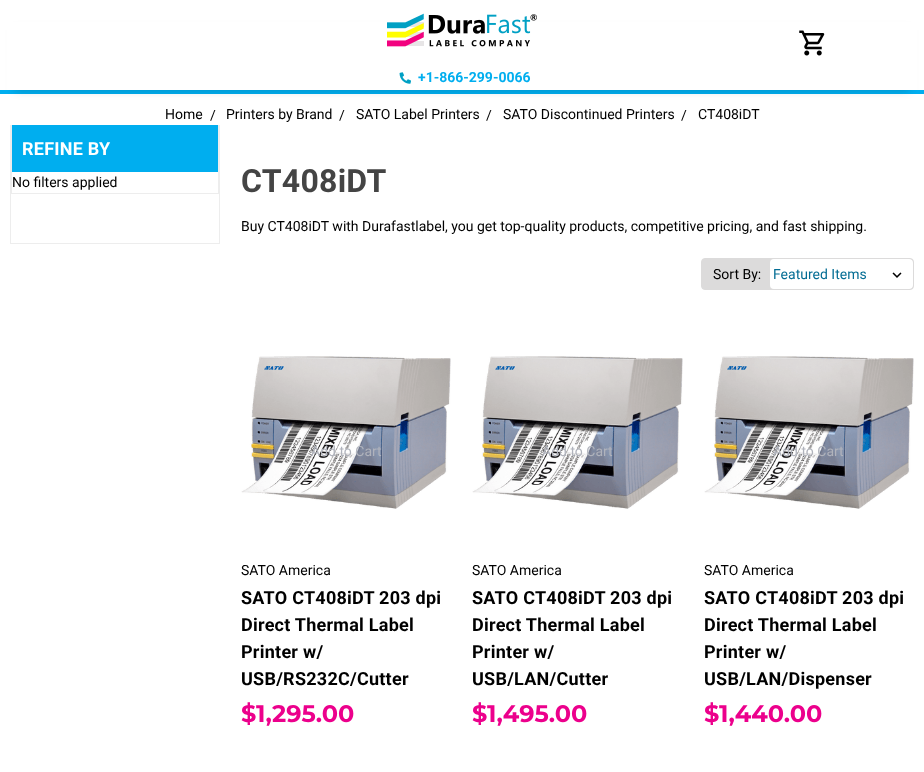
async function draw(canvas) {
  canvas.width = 924;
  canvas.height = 772;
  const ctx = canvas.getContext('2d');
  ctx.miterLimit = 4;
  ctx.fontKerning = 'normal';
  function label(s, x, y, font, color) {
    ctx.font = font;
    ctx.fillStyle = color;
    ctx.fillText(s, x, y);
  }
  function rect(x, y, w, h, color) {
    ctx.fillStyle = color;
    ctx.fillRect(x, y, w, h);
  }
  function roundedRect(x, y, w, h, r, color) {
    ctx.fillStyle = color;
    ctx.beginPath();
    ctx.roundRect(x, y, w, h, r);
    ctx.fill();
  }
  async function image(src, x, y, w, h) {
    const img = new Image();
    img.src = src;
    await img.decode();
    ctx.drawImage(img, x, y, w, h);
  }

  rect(0, 0, 924, 772, '#fff');
  rect(0, 90, 924, 4, '#00aeef');
  ctx.fillStyle = '#00000033';
  ctx.filter = 'blur(5px)';
  ctx.beginPath();
  ctx.rect(15, 30, 894, 60);
  ctx.fill();
  ctx.filter = 'none';
  rect(7, 22, 910, 68, '#fff');
  await image('assets/img1.png', 799, 30, 26, 26);
  await image('assets/img2.png', 387, 13, 150, 34);
  await image('assets/img3.png', 399, 72, 12, 12);
  label('+1-866-299-0066', 418, 82, 'bold 14px Roboto', '#00aeef');
  label('Home', 165, 119, '14px Roboto', '#000');
  label('/', 210, 120, '14px Roboto', '#000');
  label('Printers by Brand', 226, 119, '14px Roboto', '#000');
  label('/', 339, 120, '14px Roboto', '#000');
  label('SATO Label Printers', 356, 119, '14px Roboto', '#000');
  label('/', 486, 120, '14px Roboto', '#000');
  label('SATO Discontinued Printers', 503, 119, '14px Roboto', '#000');
  label('/', 681, 120, '14px Roboto', '#000');
  label('CT408iDT', 698, 119, '14px Roboto', '#000');
  rect(219, 125, 1, 119, '#ededed');
  rect(10, 243, 210, 1, '#ededed');
  rect(10, 125, 1, 119, '#ededed');
  rect(218, 125, 1, 69, '#ededed');
  rect(11, 193, 208, 1, '#ededed');
  rect(11, 125, 1, 69, '#ededed');
  rect(12, 125, 206, 47, '#00aeef');
  ctx.letterSpacing = '0.25px';
  label('REFINE BY', 22, 155, 'bold 18px Roboto', '#fff');
  ctx.letterSpacing = '0px';
  label('No filters applied', 12, 187, '14px Roboto', '#000');
  ctx.letterSpacing = '0.25px';
  label('CT408iDT', 241, 192, 'bold 32px Roboto', '#444');
  ctx.letterSpacing = '0px';
  label('Buy CT408iDT with Durafastlabel, you get top-quality products, competitive pricing, and fast shipping.', 241, 231, '14px Roboto', '#000');
  ctx.fillStyle = '#dcdbdb';
  ctx.beginPath();
  ctx.roundRect(701.5, 258.5, 212, 31, 3.5);
  ctx.fill();
  ctx.strokeStyle = '#dcdbdb';
  ctx.stroke();
  label('Sort By:', 713, 279, '14px Roboto', '#000');
  ctx.save();
  ctx.beginPath();
  ctx.roundRect(702, 259, 211, 30, 3);
  ctx.clip();
  roundedRect(770, 259, 143, 30, 4, '#fff');
  ctx.restore();
  await image('assets/img4.png', 892, 272, 10, 6);
  label('Featured Items', 773, 279, '14px Roboto', '#046d94');
  await image('assets/img5.png', 241, 356, 210, 153);
  label('Add to Cart', 311, 456, '14px Roboto', '#b0b3bc');
  label('SATO America', 241, 575, '14px Roboto', '#000');
  ctx.letterSpacing = '0.25px';
  label('SATO CT408iDT 203 dpi', 241, 604, 'bold 18px Roboto', '#000');
  label('Direct Thermal Label', 241, 631, 'bold 18px Roboto', '#000');
  label('Printer w/', 241, 658, 'bold 18px Roboto', '#000');
  label('USB/RS232C/Cutter', 241, 685, 'bold 18px Roboto', '#000');
  ctx.letterSpacing = '0px';
  label('$1,295.00', 241, 722, 'bold 24px Montserrat', '#ec008c');
  await image('assets/img6.png', 472, 356, 211, 153);
  label('Add to Cart', 542, 456, '14px Roboto', '#b0b3bc');
  label('SATO America', 472, 575, '14px Roboto', '#000');
  ctx.letterSpacing = '0.25px';
  label('SATO CT408iDT 203 dpi', 472, 604, 'bold 18px Roboto', '#000');
  label('Direct Thermal Label', 472, 631, 'bold 18px Roboto', '#000');
  label('Printer w/', 472, 658, 'bold 18px Roboto', '#000');
  label('USB/LAN/Cutter', 472, 685, 'bold 18px Roboto', '#000');
  ctx.letterSpacing = '0px';
  label('$1,495.00', 472, 722, 'bold 24px Montserrat', '#ec008c');
  await image('assets/img7.png', 704, 356, 210, 153);
  label('Add to Cart', 773, 456, '14px Roboto', '#b0b3bc');
  label('SATO America', 704, 575, '14px Roboto', '#000');
  ctx.letterSpacing = '0.25px';
  label('SATO CT408iDT 203 dpi', 704, 604, 'bold 18px Roboto', '#000');
  label('Direct Thermal Label', 704, 631, 'bold 18px Roboto', '#000');
  label('Printer w/', 704, 658, 'bold 18px Roboto', '#000');
  label('USB/LAN/Dispenser', 704, 685, 'bold 18px Roboto', '#000');
  ctx.letterSpacing = '0px';
  label('$1,440.00', 704, 722, 'bold 24px Montserrat', '#ec008c');
}

draw(document.querySelector('canvas'));
